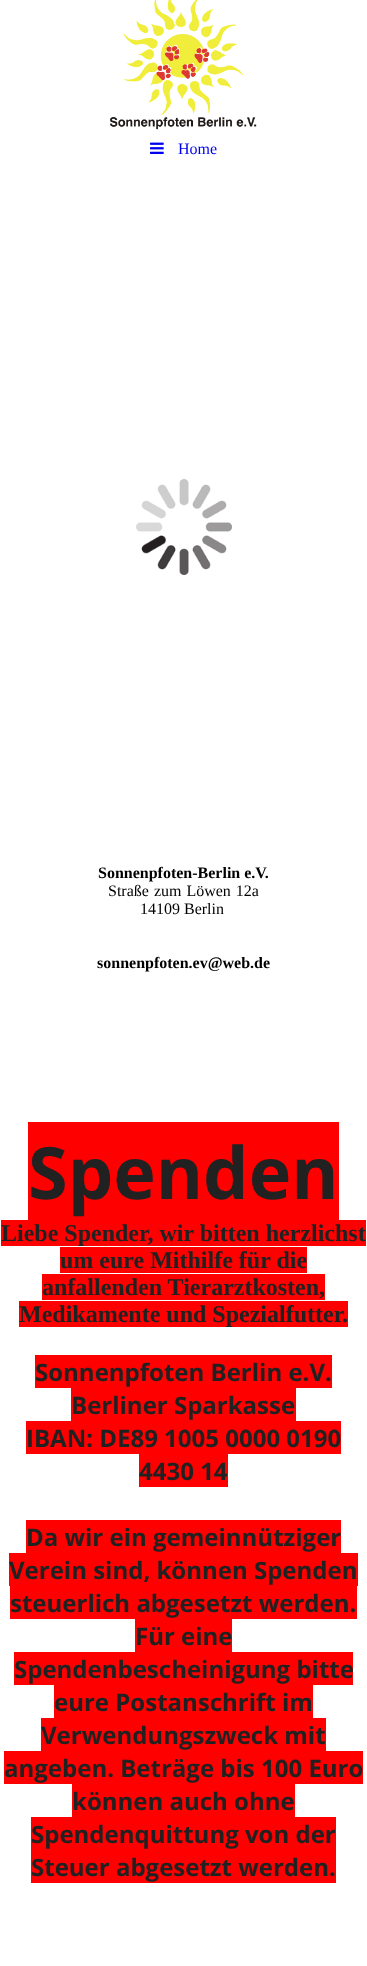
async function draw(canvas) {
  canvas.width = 367;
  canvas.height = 1966;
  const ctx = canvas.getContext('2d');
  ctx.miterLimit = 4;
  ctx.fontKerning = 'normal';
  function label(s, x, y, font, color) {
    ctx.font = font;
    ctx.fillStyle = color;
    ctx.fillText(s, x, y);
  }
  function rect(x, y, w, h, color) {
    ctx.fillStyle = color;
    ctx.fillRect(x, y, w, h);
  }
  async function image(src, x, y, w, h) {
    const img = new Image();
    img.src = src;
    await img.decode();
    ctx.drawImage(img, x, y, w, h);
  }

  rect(0, 0, 367, 1966, '#fff');
  await image('assets/img1.png', 110, 0, 147, 130);
  await image('assets/img2.png', 150, 142, 14, 12);
  label('Home', 178, 154, '16px Liberation Serif', '#00e');
  await image('assets/img3.png', 136, 479, 96, 96);
  label('Sonnenpfoten-Berlin e.V.', 98, 878, 'bold 16px Liberation Serif', '#000');
  ctx.wordSpacing = '1px';
  label('Straße zum Löwen 12a', 108, 896, '16px Liberation Serif', '#000');
  ctx.wordSpacing = '0px';
  label('14109 Berlin', 140, 914, '16px Liberation Serif', '#000');
  label('sonnenpfoten.ev@web.de', 97, 968, 'bold 16px Liberation Serif', '#000');
  rect(28, 1122, 311, 98, '#f00');
  label('Spenden', 28, 1199, 'bold 72px Open Sans', '#212121');
  rect(1, 1220, 365, 26, '#f00');
  label('Liebe Spender, wir bitten herzlichst', 1, 1241, 'bold 24px Liberation Serif', '#212121');
  rect(60, 1247, 247, 26, '#f00');
  label('um eure Mithilfe für die', 60, 1268, 'bold 24px Liberation Serif', '#212121');
  rect(42, 1274, 283, 26, '#f00');
  label('anfallenden Tierarztkosten,', 42, 1295, 'bold 24px Liberation Serif', '#212121');
  rect(19, 1301, 329, 26, '#f00');
  label('Medikamente und Spezialfutter.', 19, 1322, 'bold 24px Liberation Serif', '#212121');
  rect(35, 1355, 297, 33, '#f00');
  label('Sonnenpfoten Berlin e.V.', 35, 1381, 'bold 24px Open Sans', '#212121');
  rect(71, 1388, 225, 33, '#f00');
  label('Berliner Sparkasse', 71, 1414, 'bold 24px Open Sans', '#212121');
  rect(26, 1421, 315, 33, '#f00');
  label('IBAN: DE89 1005 0000 0190', 26, 1447, 'bold 24px Open Sans', '#212121');
  rect(139, 1454, 89, 33, '#f00');
  label('4430 14', 139, 1480, 'bold 24px Open Sans', '#212121');
  rect(26, 1520, 315, 33, '#f00');
  label('Da wir ein gemeinnütziger', 26, 1546, 'bold 24px Open Sans', '#212121');
  rect(9, 1553, 349, 33, '#f00');
  label('Verein sind, können Spenden', 9, 1579, 'bold 24px Open Sans', '#212121');
  rect(10, 1586, 347, 33, '#f00');
  label('steuerlich abgesetzt werden.', 10, 1612, 'bold 24px Open Sans', '#212121');
  rect(135, 1619, 97, 33, '#f00');
  label('Für eine', 135, 1645, 'bold 24px Open Sans', '#212121');
  rect(14, 1652, 339, 33, '#f00');
  label('Spendenbescheinigung bitte', 14, 1678, 'bold 24px Open Sans', '#212121');
  rect(54, 1685, 259, 33, '#f00');
  label('eure Postanschrift im', 54, 1711, 'bold 24px Open Sans', '#212121');
  rect(41, 1718, 285, 33, '#f00');
  label('Verwendungszweck mit', 41, 1744, 'bold 24px Open Sans', '#212121');
  rect(4, 1751, 359, 33, '#f00');
  label('angeben. Beträge bis 100 Euro', 4, 1777, 'bold 24px Open Sans', '#212121');
  rect(72, 1784, 223, 33, '#f00');
  label('können auch ohne', 72, 1810, 'bold 24px Open Sans', '#212121');
  rect(31, 1817, 305, 66, '#f00');
  label('Spendenquittung von der', 31, 1843, 'bold 24px Open Sans', '#212121');
  label('Steuer abgesetzt werden.', 31, 1876, 'bold 24px Open Sans', '#212121');
}

draw(document.querySelector('canvas'));
